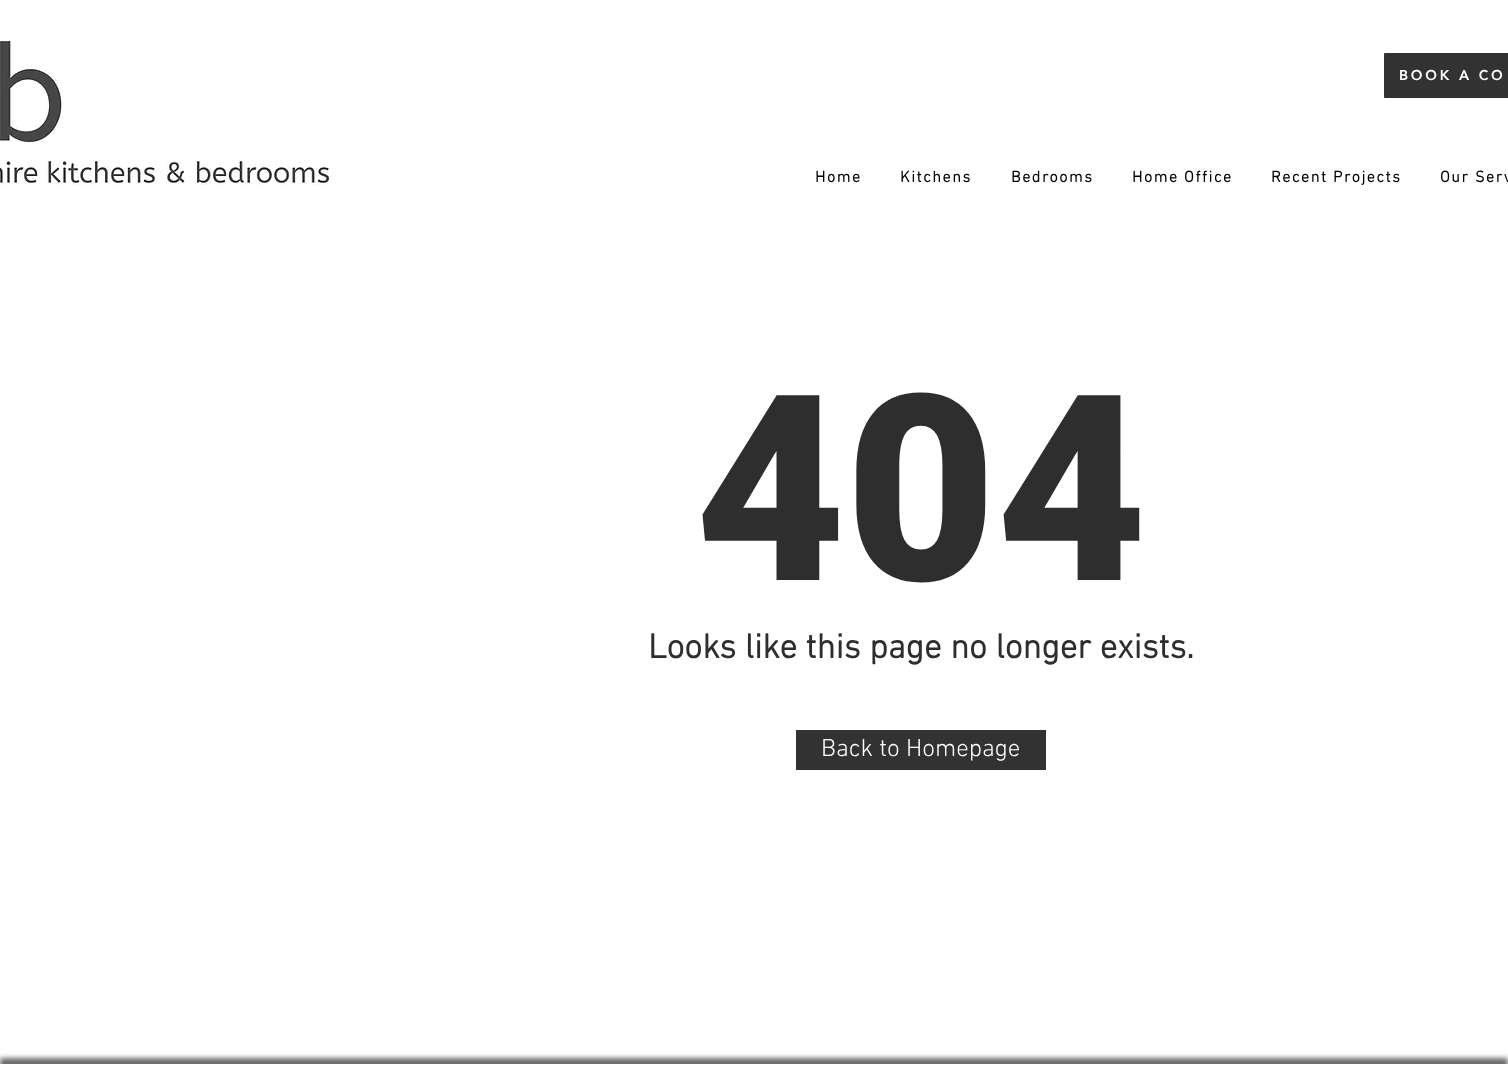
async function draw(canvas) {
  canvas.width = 1508;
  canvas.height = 1076;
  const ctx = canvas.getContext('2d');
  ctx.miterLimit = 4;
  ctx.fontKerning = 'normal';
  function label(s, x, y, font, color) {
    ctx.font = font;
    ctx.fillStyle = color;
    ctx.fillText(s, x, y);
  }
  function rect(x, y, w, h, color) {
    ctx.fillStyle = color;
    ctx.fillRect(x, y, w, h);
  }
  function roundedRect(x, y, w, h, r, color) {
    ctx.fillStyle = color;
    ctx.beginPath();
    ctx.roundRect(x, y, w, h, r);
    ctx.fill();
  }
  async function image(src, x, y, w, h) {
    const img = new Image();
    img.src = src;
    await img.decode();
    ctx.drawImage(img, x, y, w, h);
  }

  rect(0, 0, 1508, 1076, '#fff');
  await image('assets/img1.png', 0, 38, 330, 148);
  roundedRect(1384, 53, 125, 45, 1, '#323232');
  ctx.letterSpacing = '2.75px';
  label('BOOK A CO', 1399, 80, '900 14px "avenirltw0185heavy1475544"', '#fff');
  ctx.letterSpacing = '1.6px';
  label('Home', 815, 182, 'bold 16px "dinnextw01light"', '#000');
  label('Kitchens', 900, 182, 'bold 16px "dinnextw01light"', '#000');
  label('Bedrooms', 1011, 182, 'bold 16px "dinnextw01light"', '#000');
  label('Home Office', 1132, 182, 'bold 16px "dinnextw01light"', '#000');
  label('Recent Projects', 1271, 182, 'bold 16px "dinnextw01light"', '#000');
  label('Our Serv', 1440, 182, 'bold 16px "dinnextw01light"', '#000');
  ctx.letterSpacing = '0px';
  label('404', 695, 580, '900 260px Roboto', '#2f2e2e');
  label('Looks like this page no longer exists.', 648, 658, 'bold 35px "dinnextw01light"', '#2f2e2e');
  rect(796, 730, 250, 40, '#323232');
  label('Back to Homepage', 821, 756, '300 25px "dinnextw01light"', '#fff');
  ctx.save();
  ctx.beginPath();
  ctx.rect(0, 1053, 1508, 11);
  ctx.clip();
  ctx.fillStyle = '#2f2e2eb3';
  ctx.filter = 'blur(2.5px)';
  ctx.beginPath();
  ctx.rect(0, 1058, 1508, 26);
  ctx.fill();
  ctx.filter = 'none';
  ctx.restore();
}

draw(document.querySelector('canvas'));
